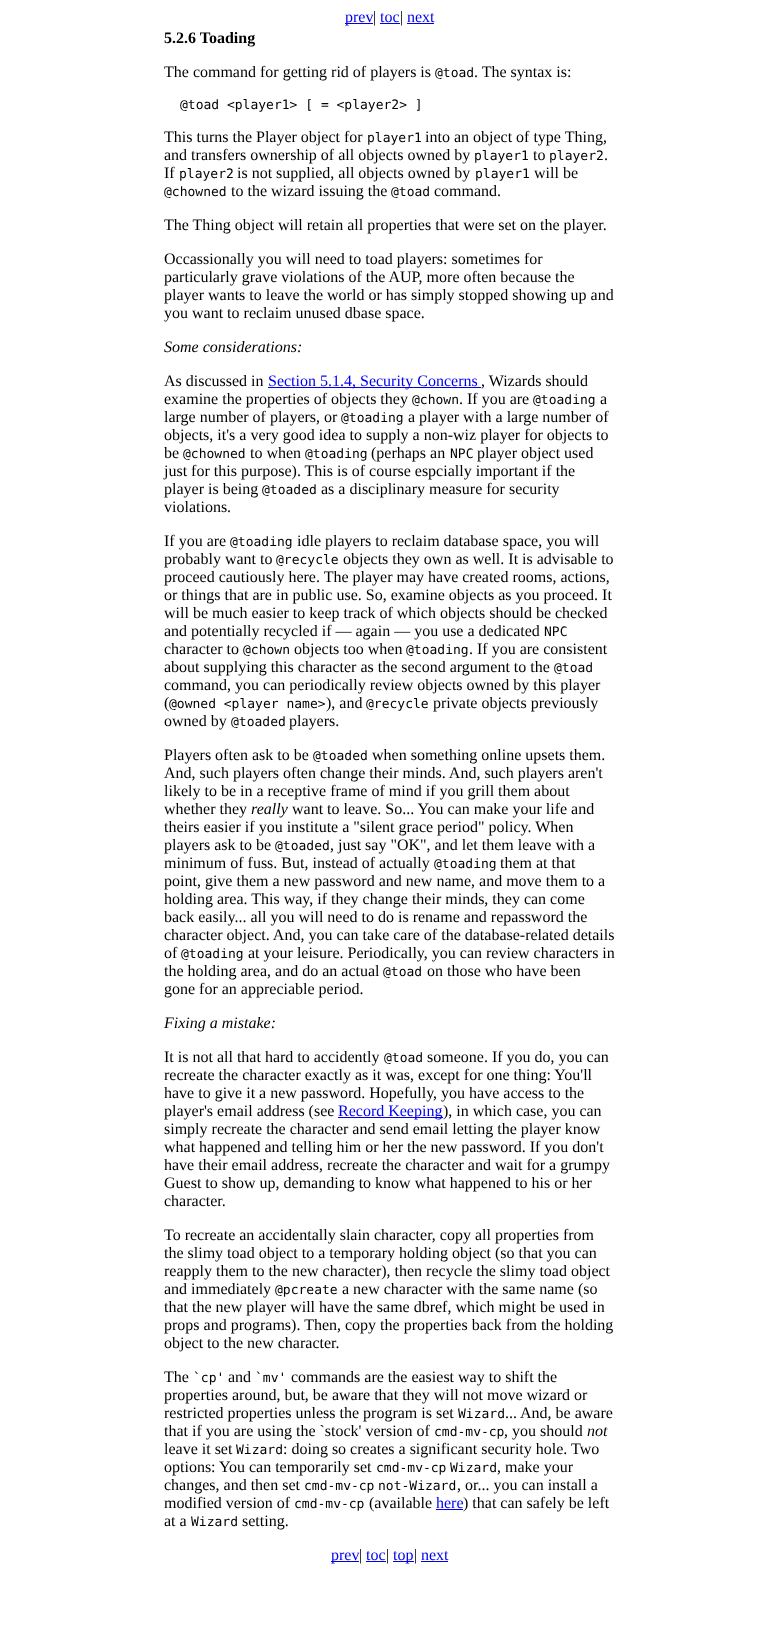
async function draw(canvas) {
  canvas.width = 779;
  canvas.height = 1642;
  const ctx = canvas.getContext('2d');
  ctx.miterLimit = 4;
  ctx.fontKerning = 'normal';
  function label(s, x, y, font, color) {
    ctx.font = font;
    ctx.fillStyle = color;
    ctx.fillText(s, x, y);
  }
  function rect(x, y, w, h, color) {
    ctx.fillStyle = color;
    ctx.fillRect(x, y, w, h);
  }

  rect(0, 0, 779, 1642, '#fff');
  rect(345, 23, 28, 1, '#00e');
  label('prev', 345, 22, '16px Liberation Serif', '#00e');
  label('|', 373, 22, '16px Liberation Serif', '#000');
  label('toc', 380, 22, '16px Liberation Serif', '#00e');
  rect(380, 23, 20, 1, '#00e');
  label('|', 400, 22, '16px Liberation Serif', '#000');
  label('next', 407, 22, '16px Liberation Serif', '#00e');
  rect(407, 23, 27, 1, '#00e');
  label('5.2.6 Toading', 164, 43, 'bold 16px Liberation Serif', '#000');
  label('The command for getting rid of players is', 164, 77, '16px Liberation Serif', '#000');
  label('@toad', 435, 77, '13px DejaVu Sans Mono', '#000');
  label('. The syntax is:', 474, 77, '16px Liberation Serif', '#000');
  label('@toad <player1> [ = <player2> ]', 180, 109, '13px DejaVu Sans Mono', '#000');
  label('This turns the Player object for', 164, 142, '16px Liberation Serif', '#000');
  label('player1', 367, 142, '13px DejaVu Sans Mono', '#000');
  label('into an object of type Thing,', 425, 142, '16px Liberation Serif', '#000');
  label('and transfers ownership of all objects owned by', 164, 160, '16px Liberation Serif', '#000');
  label('player1', 474, 160, '13px DejaVu Sans Mono', '#000');
  label('to', 533, 160, '16px Liberation Serif', '#000');
  label('player2', 549, 160, '13px DejaVu Sans Mono', '#000');
  label('.', 604, 160, '16px Liberation Serif', '#000');
  label('If', 164, 178, '16px Liberation Serif', '#000');
  label('player2', 179, 178, '13px DejaVu Sans Mono', '#000');
  label('is not supplied, all objects owned by', 237, 178, '16px Liberation Serif', '#000');
  label('player1', 475, 178, '13px DejaVu Sans Mono', '#000');
  label('will be', 534, 178, '16px Liberation Serif', '#000');
  label('@chowned', 164, 196, '13px DejaVu Sans Mono', '#000');
  label('to the wizard issuing the', 231, 196, '16px Liberation Serif', '#000');
  label('@toad', 391, 196, '13px DejaVu Sans Mono', '#000');
  label('command.', 434, 196, '16px Liberation Serif', '#000');
  label('The Thing object will retain all properties that were set on the player.', 164, 230, '16px Liberation Serif', '#000');
  label('Occassionally you will need to toad players: sometimes for', 164, 264, '16px Liberation Serif', '#000');
  label('particularly grave violations of the AUP, more often because the', 164, 282, '16px Liberation Serif', '#000');
  label('player wants to leave the world or has simply stopped showing up and', 164, 300, '16px Liberation Serif', '#000');
  label('you want to reclaim unused dbase space.', 164, 318, '16px Liberation Serif', '#000');
  label('Some considerations:', 164, 352, 'italic 16px Liberation Serif', '#000');
  label('As discussed in', 164, 386, '16px Liberation Serif', '#000');
  rect(268, 387, 213, 1, '#00e');
  label('Section 5.1.4, Security Concerns', 268, 386, '16px Liberation Serif', '#00e');
  label(', Wizards should', 481, 386, '16px Liberation Serif', '#000');
  label('examine the properties of objects they', 164, 404, '16px Liberation Serif', '#000');
  label('@chown', 412, 404, '13px DejaVu Sans Mono', '#000');
  label('. If you are', 459, 404, '16px Liberation Serif', '#000');
  label('@toading', 533, 404, '13px DejaVu Sans Mono', '#000');
  label('a', 600, 404, '16px Liberation Serif', '#000');
  label('large number of players, or', 164, 422, '16px Liberation Serif', '#000');
  label('@toading', 341, 422, '13px DejaVu Sans Mono', '#000');
  label('a player with a large number of', 408, 422, '16px Liberation Serif', '#000');
  label('objects, it\'s a very good idea to supply a non-wiz player for objects to', 164, 440, '16px Liberation Serif', '#000');
  label('be', 164, 458, '16px Liberation Serif', '#000');
  label('@chowned', 183, 458, '13px DejaVu Sans Mono', '#000');
  label('to when', 250, 458, '16px Liberation Serif', '#000');
  label('@toading', 305, 458, '13px DejaVu Sans Mono', '#000');
  label('(perhaps an', 371, 458, '16px Liberation Serif', '#000');
  label('NPC', 450, 458, '13px DejaVu Sans Mono', '#000');
  label('player object used', 477, 458, '16px Liberation Serif', '#000');
  label('just for this purpose). This is of course espcially important if the', 164, 476, '16px Liberation Serif', '#000');
  label('player is being', 164, 494, '16px Liberation Serif', '#000');
  label('@toaded', 262, 494, '13px DejaVu Sans Mono', '#000');
  label('as a disciplinary measure for security', 321, 494, '16px Liberation Serif', '#000');
  label('violations.', 164, 512, '16px Liberation Serif', '#000');
  label('If you are', 164, 546, '16px Liberation Serif', '#000');
  label('@toading', 230, 546, '13px DejaVu Sans Mono', '#000');
  label('idle players to reclaim database space, you will', 297, 546, '16px Liberation Serif', '#000');
  label('probably want to', 164, 564, '16px Liberation Serif', '#000');
  label('@recycle', 276, 564, '13px DejaVu Sans Mono', '#000');
  label('objects they own as well. It is advisable to', 343, 564, '16px Liberation Serif', '#000');
  label('proceed cautiously here. The player may have created rooms, actions,', 164, 582, '16px Liberation Serif', '#000');
  label('or things that are in public use. So, examine objects as you proceed. It', 164, 600, '16px Liberation Serif', '#000');
  label('will be much easier to keep track of which objects should be checked', 164, 618, '16px Liberation Serif', '#000');
  label('and potentially recycled if — again — you use a dedicated', 164, 636, '16px Liberation Serif', '#000');
  label('NPC', 544, 636, '13px DejaVu Sans Mono', '#000');
  label('character to', 164, 654, '16px Liberation Serif', '#000');
  label('@chown', 243, 654, '13px DejaVu Sans Mono', '#000');
  label('objects too when', 294, 654, '16px Liberation Serif', '#000');
  label('@toading', 406, 654, '13px DejaVu Sans Mono', '#000');
  label('. If you are consistent', 469, 654, '16px Liberation Serif', '#000');
  label('about supplying this character as the second argument to the', 164, 672, '16px Liberation Serif', '#000');
  label('@toad', 554, 672, '13px DejaVu Sans Mono', '#000');
  label('command, you can periodically review objects owned by this player', 164, 690, '16px Liberation Serif', '#000');
  label('(', 164, 708, '16px Liberation Serif', '#000');
  label('@owned <player name>', 169, 708, '13px DejaVu Sans Mono', '#000');
  label('), and', 326, 708, '16px Liberation Serif', '#000');
  label('@recycle', 366, 708, '13px DejaVu Sans Mono', '#000');
  label('private objects previously', 433, 708, '16px Liberation Serif', '#000');
  label('owned by', 164, 726, '16px Liberation Serif', '#000');
  label('@toaded', 231, 726, '13px DejaVu Sans Mono', '#000');
  label('players.', 289, 726, '16px Liberation Serif', '#000');
  label('Players often ask to be', 164, 760, '16px Liberation Serif', '#000');
  label('@toaded', 313, 760, '13px DejaVu Sans Mono', '#000');
  label('when something online upsets them.', 372, 760, '16px Liberation Serif', '#000');
  label('And, such players often change their minds. And, such players aren\'t', 164, 778, '16px Liberation Serif', '#000');
  label('likely to be in a receptive frame of mind if you grill them about', 164, 796, '16px Liberation Serif', '#000');
  label('whether they', 164, 814, '16px Liberation Serif', '#000');
  label('really', 251, 814, 'italic 16px Liberation Serif', '#000');
  label('want to leave. So... You can make your life and', 292, 814, '16px Liberation Serif', '#000');
  label('theirs easier if you institute a "silent grace period" policy. When', 164, 832, '16px Liberation Serif', '#000');
  label('players ask to be', 164, 850, '16px Liberation Serif', '#000');
  label('@toaded', 275, 850, '13px DejaVu Sans Mono', '#000');
  label(', just say "OK", and let them leave with a', 330, 850, '16px Liberation Serif', '#000');
  label('minimum of fuss. But, instead of actually', 164, 868, '16px Liberation Serif', '#000');
  label('@toading', 434, 868, '13px DejaVu Sans Mono', '#000');
  label('them at that', 500, 868, '16px Liberation Serif', '#000');
  label('point, give them a new password and new name, and move them to a', 164, 886, '16px Liberation Serif', '#000');
  label('holding area. This way, if they change their minds, they can come', 164, 904, '16px Liberation Serif', '#000');
  label('back easily... all you will need to do is rename and repassword the', 164, 922, '16px Liberation Serif', '#000');
  label('character object. And, you can take care of the database-related details', 164, 940, '16px Liberation Serif', '#000');
  label('of', 164, 958, '16px Liberation Serif', '#000');
  label('@toading', 181, 958, '13px DejaVu Sans Mono', '#000');
  label('at your leisure. Periodically, you can review characters in', 248, 958, '16px Liberation Serif', '#000');
  label('the holding area, and do an actual', 164, 976, '16px Liberation Serif', '#000');
  label('@toad', 383, 976, '13px DejaVu Sans Mono', '#000');
  label('on those who have been', 427, 976, '16px Liberation Serif', '#000');
  label('gone for an appreciable period.', 164, 994, '16px Liberation Serif', '#000');
  label('Fixing a mistake:', 164, 1028, 'italic 16px Liberation Serif', '#000');
  label('It is not all that hard to accidently', 164, 1062, '16px Liberation Serif', '#000');
  label('@toad', 384, 1062, '13px DejaVu Sans Mono', '#000');
  label('someone. If you do, you can', 427, 1062, '16px Liberation Serif', '#000');
  label('recreate the character exactly as it was, except for one thing: You\'ll', 164, 1080, '16px Liberation Serif', '#000');
  label('have to give it a new password. Hopefully, you have access to the', 164, 1098, '16px Liberation Serif', '#000');
  label('player\'s email address (see', 164, 1116, '16px Liberation Serif', '#000');
  rect(338, 1117, 105, 1, '#00e');
  label('Record Keeping', 338, 1116, '16px Liberation Serif', '#00e');
  label('), in which case, you can', 443, 1116, '16px Liberation Serif', '#000');
  label('simply recreate the character and send email letting the player know', 164, 1134, '16px Liberation Serif', '#000');
  label('what happened and telling him or her the new password. If you don\'t', 164, 1152, '16px Liberation Serif', '#000');
  label('have their email address, recreate the character and wait for a grumpy', 164, 1170, '16px Liberation Serif', '#000');
  label('Guest to show up, demanding to know what happened to his or her', 164, 1188, '16px Liberation Serif', '#000');
  label('character.', 164, 1206, '16px Liberation Serif', '#000');
  label('To recreate an accidentally slain character, copy all properties from', 164, 1240, '16px Liberation Serif', '#000');
  label('the slimy toad object to a temporary holding object (so that you can', 164, 1258, '16px Liberation Serif', '#000');
  label('reapply them to the new character), then recycle the slimy toad object', 164, 1276, '16px Liberation Serif', '#000');
  label('and immediately', 164, 1294, '16px Liberation Serif', '#000');
  label('@pcreate', 275, 1294, '13px DejaVu Sans Mono', '#000');
  label('a new character with the same name (so', 342, 1294, '16px Liberation Serif', '#000');
  label('that the new player will have the same dbref, which might be used in', 164, 1312, '16px Liberation Serif', '#000');
  label('props and programs). Then, copy the properties back from the holding', 164, 1330, '16px Liberation Serif', '#000');
  label('object to the new character.', 164, 1348, '16px Liberation Serif', '#000');
  label('The', 164, 1382, '16px Liberation Serif', '#000');
  label('`cp\'', 193, 1382, '13px DejaVu Sans Mono', '#000');
  label('and', 228, 1382, '16px Liberation Serif', '#000');
  label('`mv\'', 255, 1382, '13px DejaVu Sans Mono', '#000');
  label('commands are the easiest way to shift the', 291, 1382, '16px Liberation Serif', '#000');
  label('properties around, but, be aware that they will not move wizard or', 164, 1400, '16px Liberation Serif', '#000');
  label('restricted properties unless the program is set', 164, 1418, '16px Liberation Serif', '#000');
  label('Wizard', 458, 1418, '13px DejaVu Sans Mono', '#000');
  label('...', 505, 1418, '16px Liberation Serif', '#000');
  label('And, be aware', 520, 1418, '16px Liberation Serif', '#000');
  label('that if you are using the `stock\' version of', 164, 1436, '16px Liberation Serif', '#000');
  label('cmd-mv-cp', 434, 1436, '13px DejaVu Sans Mono', '#000');
  label(', you should', 504, 1436, '16px Liberation Serif', '#000');
  label('not', 587, 1436, 'italic 16px Liberation Serif', '#000');
  label('leave it set', 164, 1454, '16px Liberation Serif', '#000');
  label('Wizard', 236, 1454, '13px DejaVu Sans Mono', '#000');
  label(': doing so creates a significant security hole. Two', 283, 1454, '16px Liberation Serif', '#000');
  label('options: You can temporarily set', 164, 1472, '16px Liberation Serif', '#000');
  label('cmd-mv-cp', 376, 1472, '13px DejaVu Sans Mono', '#000');
  label('Wizard', 450, 1472, '13px DejaVu Sans Mono', '#000');
  label(', make your', 497, 1472, '16px Liberation Serif', '#000');
  label('changes, and then set', 164, 1490, '16px Liberation Serif', '#000');
  label('cmd-mv-cp', 304, 1490, '13px DejaVu Sans Mono', '#000');
  label('not-Wizard', 378, 1490, '13px DejaVu Sans Mono', '#000');
  label(', or... you can install a', 457, 1490, '16px Liberation Serif', '#000');
  label('modified version of', 164, 1508, '16px Liberation Serif', '#000');
  label('cmd-mv-cp', 294, 1508, '13px DejaVu Sans Mono', '#000');
  label('(available', 369, 1508, '16px Liberation Serif', '#000');
  label('here', 436, 1508, '16px Liberation Serif', '#00e');
  rect(436, 1509, 27, 1, '#00e');
  label(') that can safely be left', 463, 1508, '16px Liberation Serif', '#000');
  label('at a', 164, 1526, '16px Liberation Serif', '#000');
  label('Wizard', 191, 1526, '13px DejaVu Sans Mono', '#000');
  label('setting.', 242, 1526, '16px Liberation Serif', '#000');
  rect(331, 1561, 28, 1, '#00e');
  label('prev', 331, 1560, '16px Liberation Serif', '#00e');
  label('|', 359, 1560, '16px Liberation Serif', '#000');
  label('toc', 366, 1560, '16px Liberation Serif', '#00e');
  rect(366, 1561, 20, 1, '#00e');
  label('|', 386, 1560, '16px Liberation Serif', '#000');
  rect(393, 1561, 21, 1, '#00e');
  label('top', 393, 1560, '16px Liberation Serif', '#00e');
  label('|', 414, 1560, '16px Liberation Serif', '#000');
  label('next', 421, 1560, '16px Liberation Serif', '#00e');
  rect(421, 1561, 27, 1, '#00e');
}

draw(document.querySelector('canvas'));
